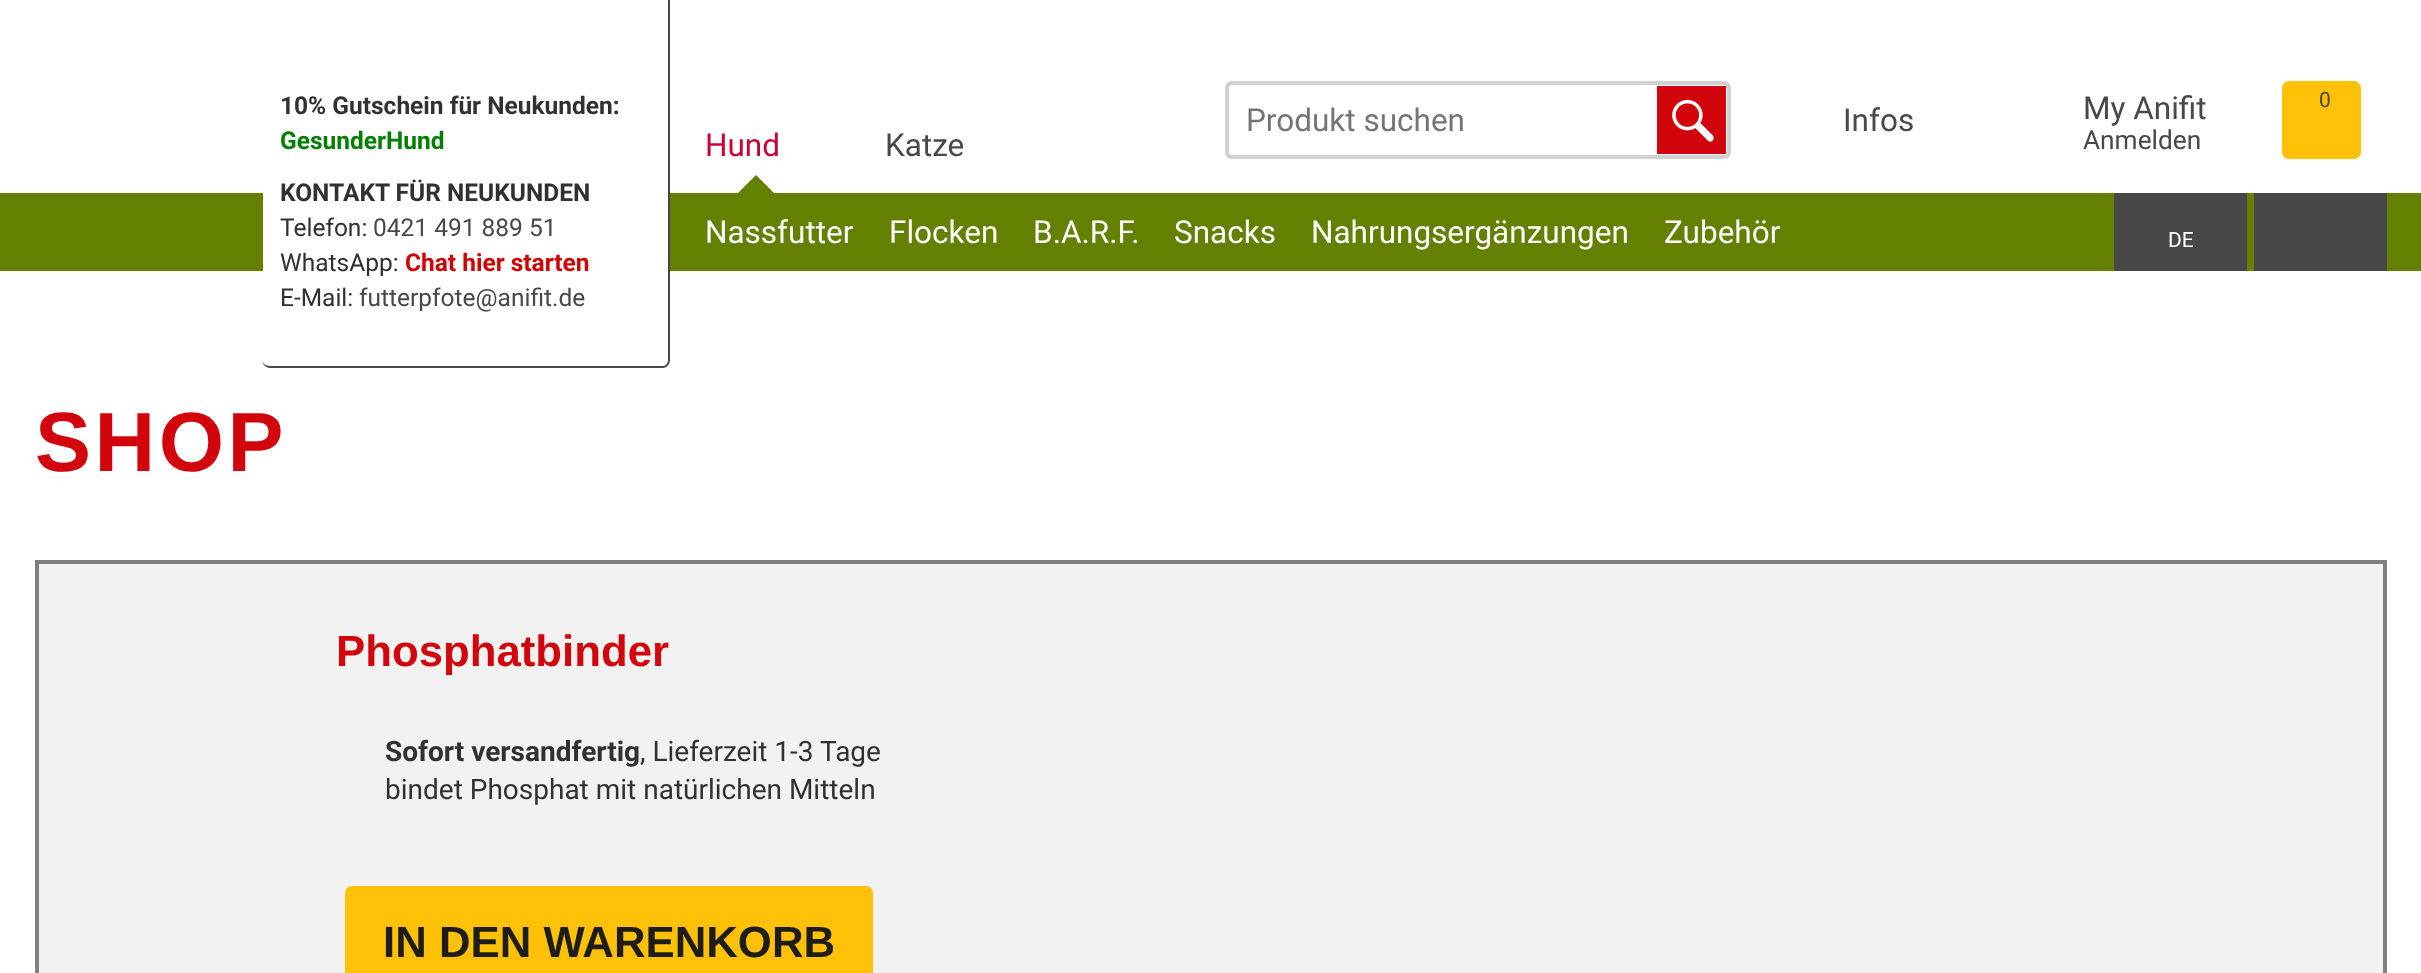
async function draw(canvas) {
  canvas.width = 2421;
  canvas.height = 973;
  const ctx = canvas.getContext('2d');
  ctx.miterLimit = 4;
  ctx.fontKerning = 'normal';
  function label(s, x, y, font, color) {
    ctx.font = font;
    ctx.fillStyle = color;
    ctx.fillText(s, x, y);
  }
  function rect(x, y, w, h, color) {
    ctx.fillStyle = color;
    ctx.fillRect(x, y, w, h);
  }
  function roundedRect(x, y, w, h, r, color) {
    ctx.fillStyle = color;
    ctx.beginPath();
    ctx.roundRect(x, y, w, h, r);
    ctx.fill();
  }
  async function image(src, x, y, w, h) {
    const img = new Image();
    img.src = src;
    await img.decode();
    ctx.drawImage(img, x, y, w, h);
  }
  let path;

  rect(0, 0, 2421, 973, '#fff');
  rect(0, 193, 2421, 78, '#638000');
  ctx.fillStyle = '#fff';
  ctx.beginPath();
  ctx.roundRect(263, 0, 407, 368, [0, 0, 7, 7]);
  ctx.fill();
  ctx.fillStyle = '#484848';
  path = new Path2D('M262 0H670V360C670 364 667 368 663 368H270C266 368 262 364 262 360ZM262 0H668V360C668 363 666 366 663 366H270C266 366 262 363 262 360Z');
  ctx.fill(path, 'evenodd');
  label('10% Gutschein für Neukunden:', 280, 114, 'bold 24.5px Roboto', '#313131');
  label('GesunderHund', 280, 149, 'bold 24.5px Roboto', '#008000');
  label('KONTAKT FÜR NEUKUNDEN', 280, 201, 'bold 24.5px Roboto', '#313131');
  label('Telefon:', 280, 236, '24.5px Roboto', '#313131');
  label('0421 491 889 51', 373, 236, '24.5px Roboto', '#484848');
  label('WhatsApp:', 280, 271, '24.5px Roboto', '#313131');
  label('Chat hier starten', 405, 271, 'bold 24.5px Roboto', '#d00000');
  label('E-Mail:', 280, 306, '24.5px Roboto', '#313131');
  label('futterpfote@anifit.de', 359, 306, '24.5px Roboto', '#484848');
  label('Infos', 1843, 131, '31.5px Roboto', '#484848');
  label('My Anifit', 2083, 119, '31.5px Roboto', '#484848');
  label('Anmelden', 2083, 149, '26.25px Roboto', '#484848');
  roundedRect(2282, 81, 79, 78, 7, '#ffc107');
  label('0', 2319, 107, '21px Roboto', '#484848');
  label('Hund', 705, 156, '31.5px Roboto', '#c90230');
  ctx.fillStyle = '#638000';
  path = new Path2D('M777 196H735L756 175Z');
  ctx.fill(path);
  label('Nassfutter', 705, 243, '31.5px Roboto', '#fff');
  label('Flocken', 889, 243, '31.5px Roboto', '#fff');
  label('B.A.R.F.', 1033, 243, '31.5px Roboto', '#fff');
  label('Snacks', 1174, 243, '31.5px Roboto', '#fff');
  label('Nahrungsergänzungen', 1311, 243, '31.5px Roboto', '#fff');
  label('Zubehör', 1664, 243, '31.5px Roboto', '#fff');
  label('Katze', 885, 156, '31.5px Roboto', '#484848');
  ctx.beginPath();
  ctx.roundRect(1227, 83, 502, 74, 5);
  ctx.strokeStyle = '#d1d1d1';
  ctx.lineWidth = 4;
  ctx.stroke();
  label('Produkt suchen', 1246, 131, '31.5px Roboto', '#757575');
  rect(1657, 86, 69, 68, '#d3050c');
  await image('assets/img1.png', 1672, 99, 42, 43);
  rect(2114, 193, 133, 78, '#484848');
  label('DE', 2168, 247, '21px Roboto', '#fff');
  rect(2254, 193, 133, 78, '#484848');
  ctx.letterSpacing = '3.5px';
  label('SHOP', 35, 471, 'bold 84px Liberation Sans', '#d3050c');
  ctx.fillStyle = '#f2f2f2';
  ctx.beginPath();
  ctx.rect(37, 562, 2348, 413);
  ctx.fill();
  ctx.strokeStyle = '#808080';
  ctx.stroke();
  ctx.letterSpacing = '0px';
  label('Phosphatbinder', 336, 666, 'bold 43.75px Liberation Sans', '#d3050c');
  label('Sofort versandfertig', 385, 761, 'bold 28px Roboto', '#313131');
  label(', Lieferzeit 1-3 Tage', 640, 761, '28px Roboto', '#313131');
  label('bindet Phosphat mit natürlichen Mitteln', 385, 799, '28px Roboto', '#313131');
  ctx.fillStyle = '#ffc107';
  ctx.beginPath();
  ctx.roundRect(347, 888, 524, 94, 5);
  ctx.fill();
  ctx.strokeStyle = '#ffc107';
  ctx.stroke();
  label('IN DEN WARENKORB', 383, 957, 'bold 43.75px Liberation Sans', '#1d1d1b');
}

draw(document.querySelector('canvas'));
